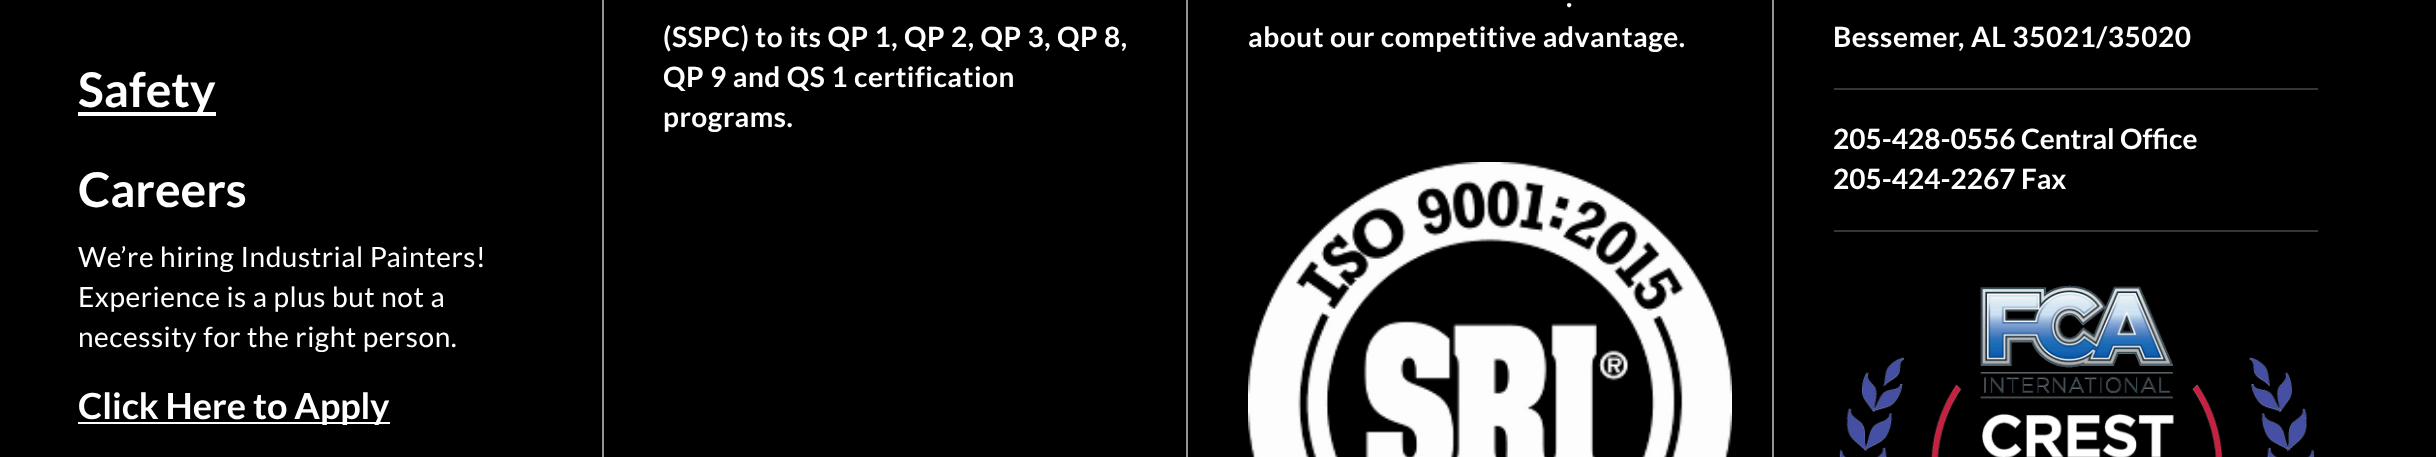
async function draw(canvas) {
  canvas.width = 2436;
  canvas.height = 457;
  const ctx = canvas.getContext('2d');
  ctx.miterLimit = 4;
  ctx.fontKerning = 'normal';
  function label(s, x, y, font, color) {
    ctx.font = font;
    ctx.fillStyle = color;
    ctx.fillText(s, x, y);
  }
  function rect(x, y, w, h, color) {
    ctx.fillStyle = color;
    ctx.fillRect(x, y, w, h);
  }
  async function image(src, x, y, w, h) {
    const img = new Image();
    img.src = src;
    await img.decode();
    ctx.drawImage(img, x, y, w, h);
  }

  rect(0, 0, 2436, 457, '#000');
  rect(602, 0, 2, 457, '#959595');
  rect(78, 112, 138, 4, '#fff');
  label('Safety', 78, 107, 'bold 48px Lato', '#fff');
  label('Careers', 78, 207, 'bold 48px Lato', '#fff');
  ctx.letterSpacing = '0.55px';
  label('We’re hiring Industrial Painters!', 78, 267, '28px Lato', '#fff');
  label('Experience is a plus but not a', 78, 307, '28px Lato', '#fff');
  label('necessity for the right person.', 78, 347, '28px Lato', '#fff');
  rect(78, 422, 312, 2, '#fff');
  ctx.letterSpacing = '0px';
  label('Click Here to Apply', 78, 419, 'bold 36px Lato', '#fff');
  rect(1186, 0, 2, 457, '#959595');
  ctx.letterSpacing = '0.55px';
  label('(SSPC) to its QP 1, QP 2, QP 3, QP 8,', 663, 47, 'bold 28px Lato', '#fff');
  label('QP 9 and QS 1 certification', 663, 87, 'bold 28px Lato', '#fff');
  label('programs.', 663, 127, 'bold 28px Lato', '#fff');
  rect(1772, 0, 2, 457, '#959595');
  label('.', 1566, 7, 'bold 28px Lato', '#fff');
  label('about our competitive advantage.', 1248, 47, 'bold 28px Lato', '#fff');
  await image('assets/img1.png', 1248, 162, 484, 295);
  rect(1834, 88, 484, 2, '#363636');
  label('Bessemer, AL 35021/35020', 1833, 47, 'bold 28px Lato', '#fff');
  rect(1834, 230, 484, 2, '#363636');
  ctx.letterSpacing = '0px';
  label('205-428-0556 Central Office', 1833, 149, 'bold 28px Lato', '#fff');
  label('205-424-2267 Fax', 1833, 189, 'bold 28px Lato', '#fff');
  await image('assets/img2.png', 1839, 285, 476, 172);
}

draw(document.querySelector('canvas'));
